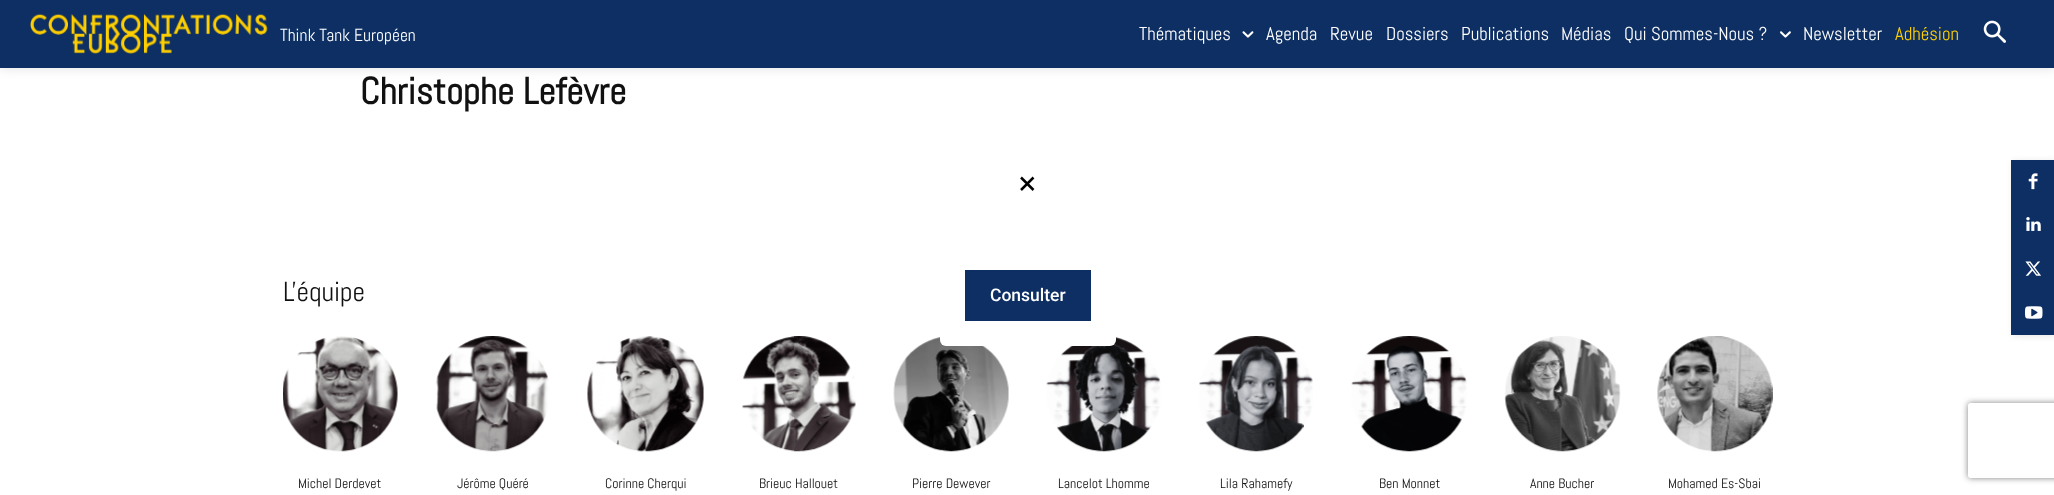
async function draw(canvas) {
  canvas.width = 2054;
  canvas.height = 495;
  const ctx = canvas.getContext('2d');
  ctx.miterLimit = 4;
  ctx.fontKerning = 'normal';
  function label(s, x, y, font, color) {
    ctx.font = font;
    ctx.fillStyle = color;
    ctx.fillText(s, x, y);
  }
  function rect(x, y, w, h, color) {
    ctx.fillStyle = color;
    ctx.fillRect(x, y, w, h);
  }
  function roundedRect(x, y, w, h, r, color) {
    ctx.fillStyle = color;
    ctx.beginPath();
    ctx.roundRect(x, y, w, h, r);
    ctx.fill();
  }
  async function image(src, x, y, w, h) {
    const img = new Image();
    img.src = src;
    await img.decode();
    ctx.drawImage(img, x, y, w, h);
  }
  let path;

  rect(0, 0, 2054, 495, '#fff');
  ctx.fillStyle = '#0000001f';
  ctx.filter = 'blur(6px)';
  ctx.beginPath();
  ctx.rect(0, 0, 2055, 68);
  ctx.fill();
  ctx.filter = 'none';
  rect(0, 0, 2054, 68, '#0d2f63');
  await image('assets/img1.png', 30, 13, 238, 41);
  label('Think Tank Européen', 280, 41, '17.5px Abel', '#fff');
  label('Thématiques', 1139, 40, '18.75px Abel', '#fff');
  await image('assets/img2.png', 1242, 31, 12, 7);
  label('Agenda', 1266, 40, '18.75px Abel', '#fff');
  label('Revue', 1330, 40, '18.75px Abel', '#fff');
  label('Dossiers', 1386, 40, '18.75px Abel', '#fff');
  label('Publications', 1461, 40, '18.75px Abel', '#fff');
  label('Médias', 1561, 40, '18.75px Abel', '#fff');
  label('Qui Sommes-Nous ?', 1624, 40, '18.75px Abel', '#fff');
  await image('assets/img3.png', 1780, 31, 11, 7);
  label('Newsletter', 1803, 40, '18.75px Abel', '#fff');
  label('Adhésion', 1895, 40, '18.75px Abel', '#ffcf00');
  await image('assets/img4.png', 1983, 20, 23, 23);
  ctx.fillStyle = '#0000001a';
  ctx.filter = 'blur(3px)';
  ctx.beginPath();
  ctx.rect(2013, 161, 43, 175);
  ctx.fill();
  ctx.filter = 'none';
  rect(2011, 160, 43, 175, '#0d2f63');
  await image('assets/img5.png', 2028, 173, 10, 17);
  await image('assets/img6.png', 2026, 217, 15, 14);
  await image('assets/img7.png', 2025, 261, 16, 15);
  await image('assets/img8.png', 2025, 306, 18, 13);
  label('Christophe Lefèvre', 360, 104, 'bold 37.5px Abel', '#111');
  label('L\'équipe', 283, 301, '27.5px Abel', '#111');
  await image('assets/img9.png', 283, 336, 115, 116);
  label('Michel Derdevet', 298, 488, '13.75px Abel', '#111');
  await image('assets/img10.png', 435, 336, 114, 116);
  label('Jérôme Quéré', 457, 488, '13.75px Abel', '#111');
  await image('assets/img11.png', 587, 336, 117, 116);
  label('Corinne Cherqui', 605, 488, '13.75px Abel', '#111');
  await image('assets/img12.png', 742, 336, 114, 116);
  label('Brieuc Hallouet', 759, 488, '13.75px Abel', '#111');
  await image('assets/img13.png', 893, 337, 116, 115);
  label('Pierre Dewever', 912, 488, '13.75px Abel', '#111');
  await image('assets/img14.png', 1046, 337, 115, 115);
  label('Lancelot Lhomme', 1058, 488, '13.75px Abel', '#111');
  await image('assets/img15.png', 1199, 336, 114, 116);
  label('Lila Rahamefy', 1220, 488, '13.75px Abel', '#111');
  await image('assets/img16.png', 1351, 336, 116, 116);
  label('Ben Monnet', 1379, 488, '13.75px Abel', '#111');
  await image('assets/img17.png', 1504, 336, 117, 116);
  label('Anne Bucher', 1530, 488, '13.75px Abel', '#111');
  await image('assets/img18.png', 1657, 336, 116, 116);
  label('Mohamed Es-Sbai', 1668, 488, '13.75px Abel', '#111');
  roundedRect(940, 149, 176, 197, 6, '#fff');
  path = new Path2D('M1021 190L1033.5 177.5M1021 177.5L1033.5 190');
  ctx.strokeStyle = '#000';
  ctx.lineWidth = 2.5;
  ctx.stroke(path);
  rect(965, 270, 126, 51, '#0d2f63');
  label('Consulter', 990, 301, '500 17.5px Roboto', '#fff');
  ctx.save();
  path = new Path2D('M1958 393H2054V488H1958ZM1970.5 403H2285.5C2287 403 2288 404 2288 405.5V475.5C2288 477 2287 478 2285.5 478H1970.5C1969 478 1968 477 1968 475.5V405.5C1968 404 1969 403 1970.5 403Z');
  ctx.clip(path, 'evenodd');
  ctx.fillStyle = '#808080';
  ctx.filter = 'blur(3px)';
  ctx.beginPath();
  ctx.roundRect(1968, 403, 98, 75, 2.5);
  ctx.fill();
  ctx.filter = 'none';
  ctx.restore();
}

draw(document.querySelector('canvas'));
